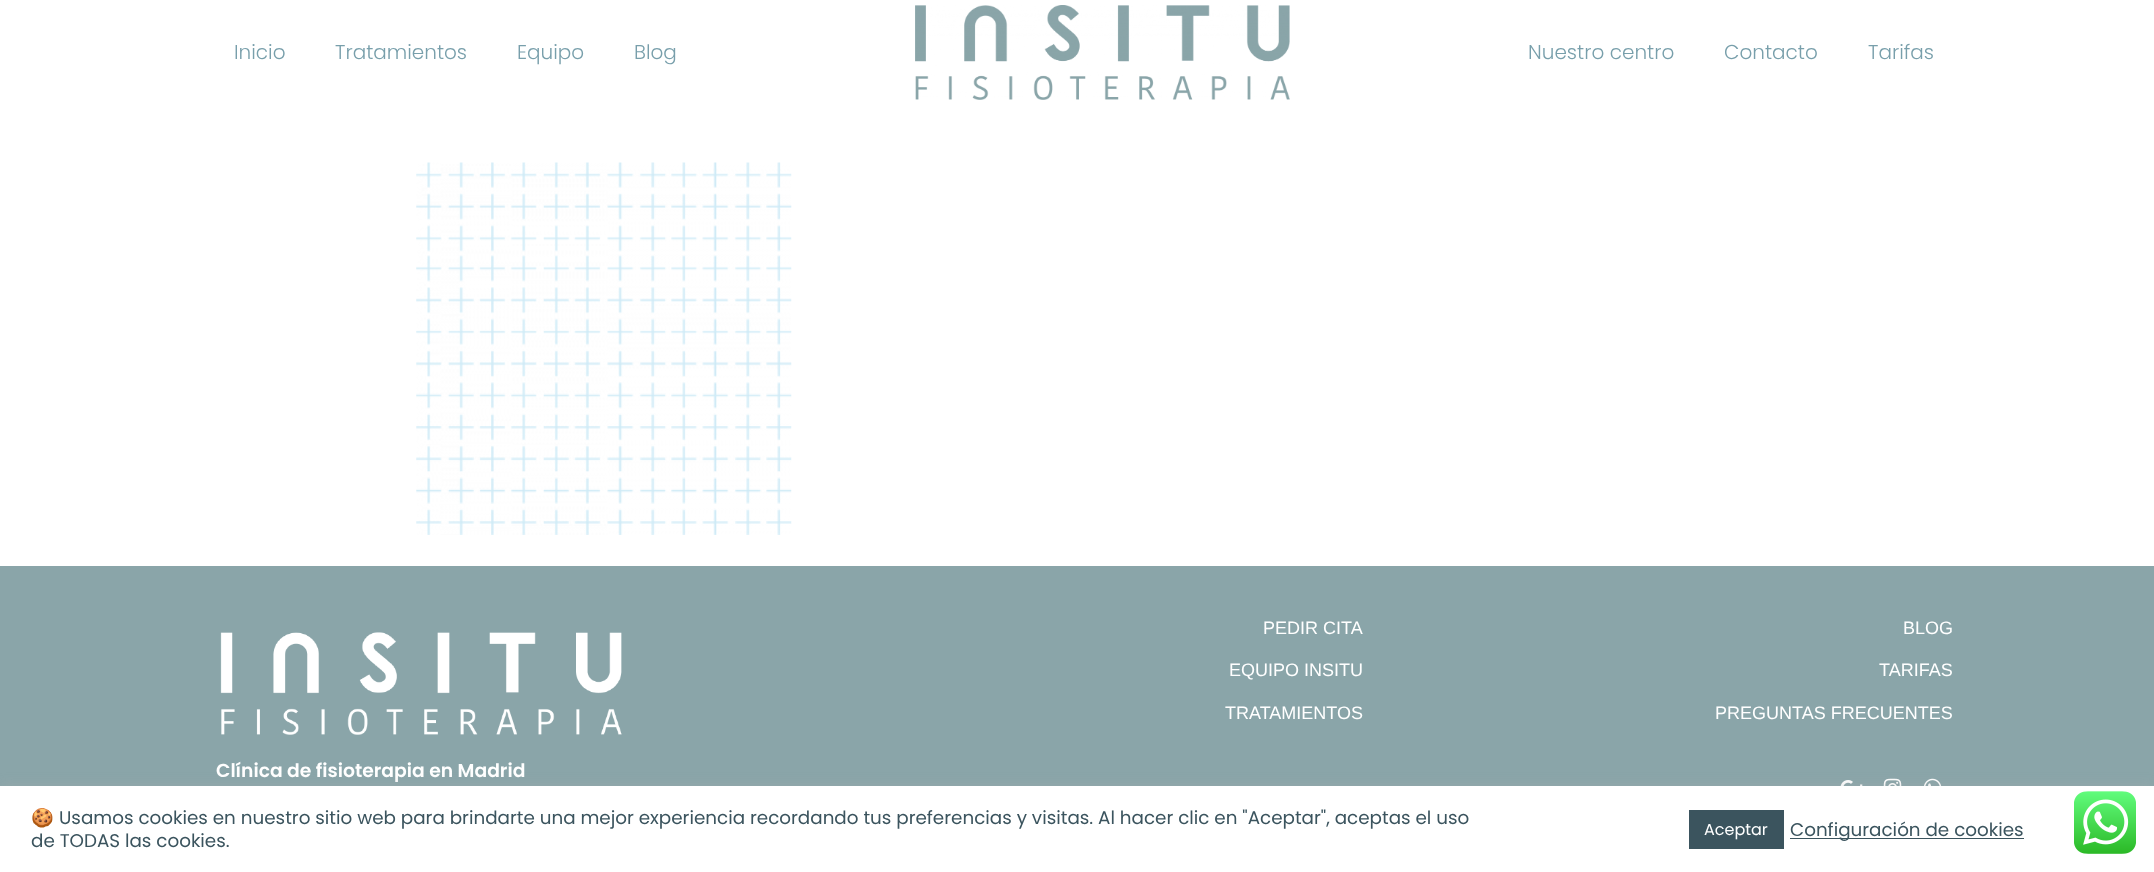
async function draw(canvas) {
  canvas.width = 2154;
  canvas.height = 872;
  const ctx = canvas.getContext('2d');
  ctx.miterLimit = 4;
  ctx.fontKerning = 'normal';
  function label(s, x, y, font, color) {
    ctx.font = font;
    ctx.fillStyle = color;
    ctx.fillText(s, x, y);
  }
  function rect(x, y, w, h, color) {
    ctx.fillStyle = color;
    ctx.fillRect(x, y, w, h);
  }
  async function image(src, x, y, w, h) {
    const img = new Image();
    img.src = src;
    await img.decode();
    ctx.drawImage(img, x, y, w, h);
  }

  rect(0, 0, 2154, 872, '#fff');
  label('Inicio', 234, 59, '300 20px Poppins', '#789fab');
  label('Tratamientos', 335, 59, '300 20px Poppins', '#789fab');
  label('Equipo', 517, 59, '300 20px Poppins', '#789fab');
  label('Blog', 634, 59, '300 20px Poppins', '#789fab');
  await image('assets/img1.png', 915, 5, 375, 95);
  label('Nuestro centro', 1528, 59, '300 20px Poppins', '#789fab');
  label('Contacto', 1724, 59, '300 20px Poppins', '#789fab');
  label('Tarifas', 1868, 59, '300 20px Poppins', '#789fab');
  await image('assets/img2.png', 416, 162, 376, 373);
  rect(0, 566, 2154, 220, '#8aa5a9');
  label('PEDIR CITA', 1263, 634, '18px Liberation Sans', '#fff');
  label('EQUIPO INSITU', 1229, 676, '18px Liberation Sans', '#fff');
  label('TRATAMIENTOS', 1225, 719, '18px Liberation Sans', '#fff');
  label('BLOG', 1903, 634, '18px Liberation Sans', '#fff');
  label('TARIFAS', 1879, 676, '18px Liberation Sans', '#fff');
  label('PREGUNTAS FRECUENTES', 1715, 719, '18px Liberation Sans', '#fff');
  await image('assets/img3.png', 1840, 780, 23, 6);
  await image('assets/img4.png', 1883, 778, 19, 8);
  await image('assets/img5.png', 1924, 778, 18, 8);
  await image('assets/img6.png', 220, 632, 402, 103);
  label('Clínica de fisioterapia en Madrid', 216, 777, '600 18.75px Poppins', '#fff');
  ctx.fillStyle = '#acabab4d';
  ctx.filter = 'blur(6px)';
  ctx.beginPath();
  ctx.rect(0, 785, 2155, 86);
  ctx.fill();
  ctx.filter = 'none';
  rect(0, 786, 2154, 86, '#fff');
  label('🍪', 31, 824, '18.33px Noto Color Emoji', '#3b545e');
  label('Usamos cookies en nuestro sitio web para brindarte una mejor experiencia recordando tus preferencias y visitas. Al hacer clic en "Aceptar", aceptas el uso', 59, 824, '18.33px Poppins', '#3b545e');
  label('de TODAS las cookies.', 31, 847, '18.33px Poppins', '#3b545e');
  rect(1689, 810, 95, 39, '#3b545e');
  label('Aceptar', 1704, 835, '16px Poppins', '#fff');
  rect(1790, 838, 234, 1, '#3b545e');
  label('Configuración de cookies', 1790, 836, '18.33px Poppins', '#3b545e');
  await image('assets/img7.png', 2074, 791, 62, 63);
}

draw(document.querySelector('canvas'));
